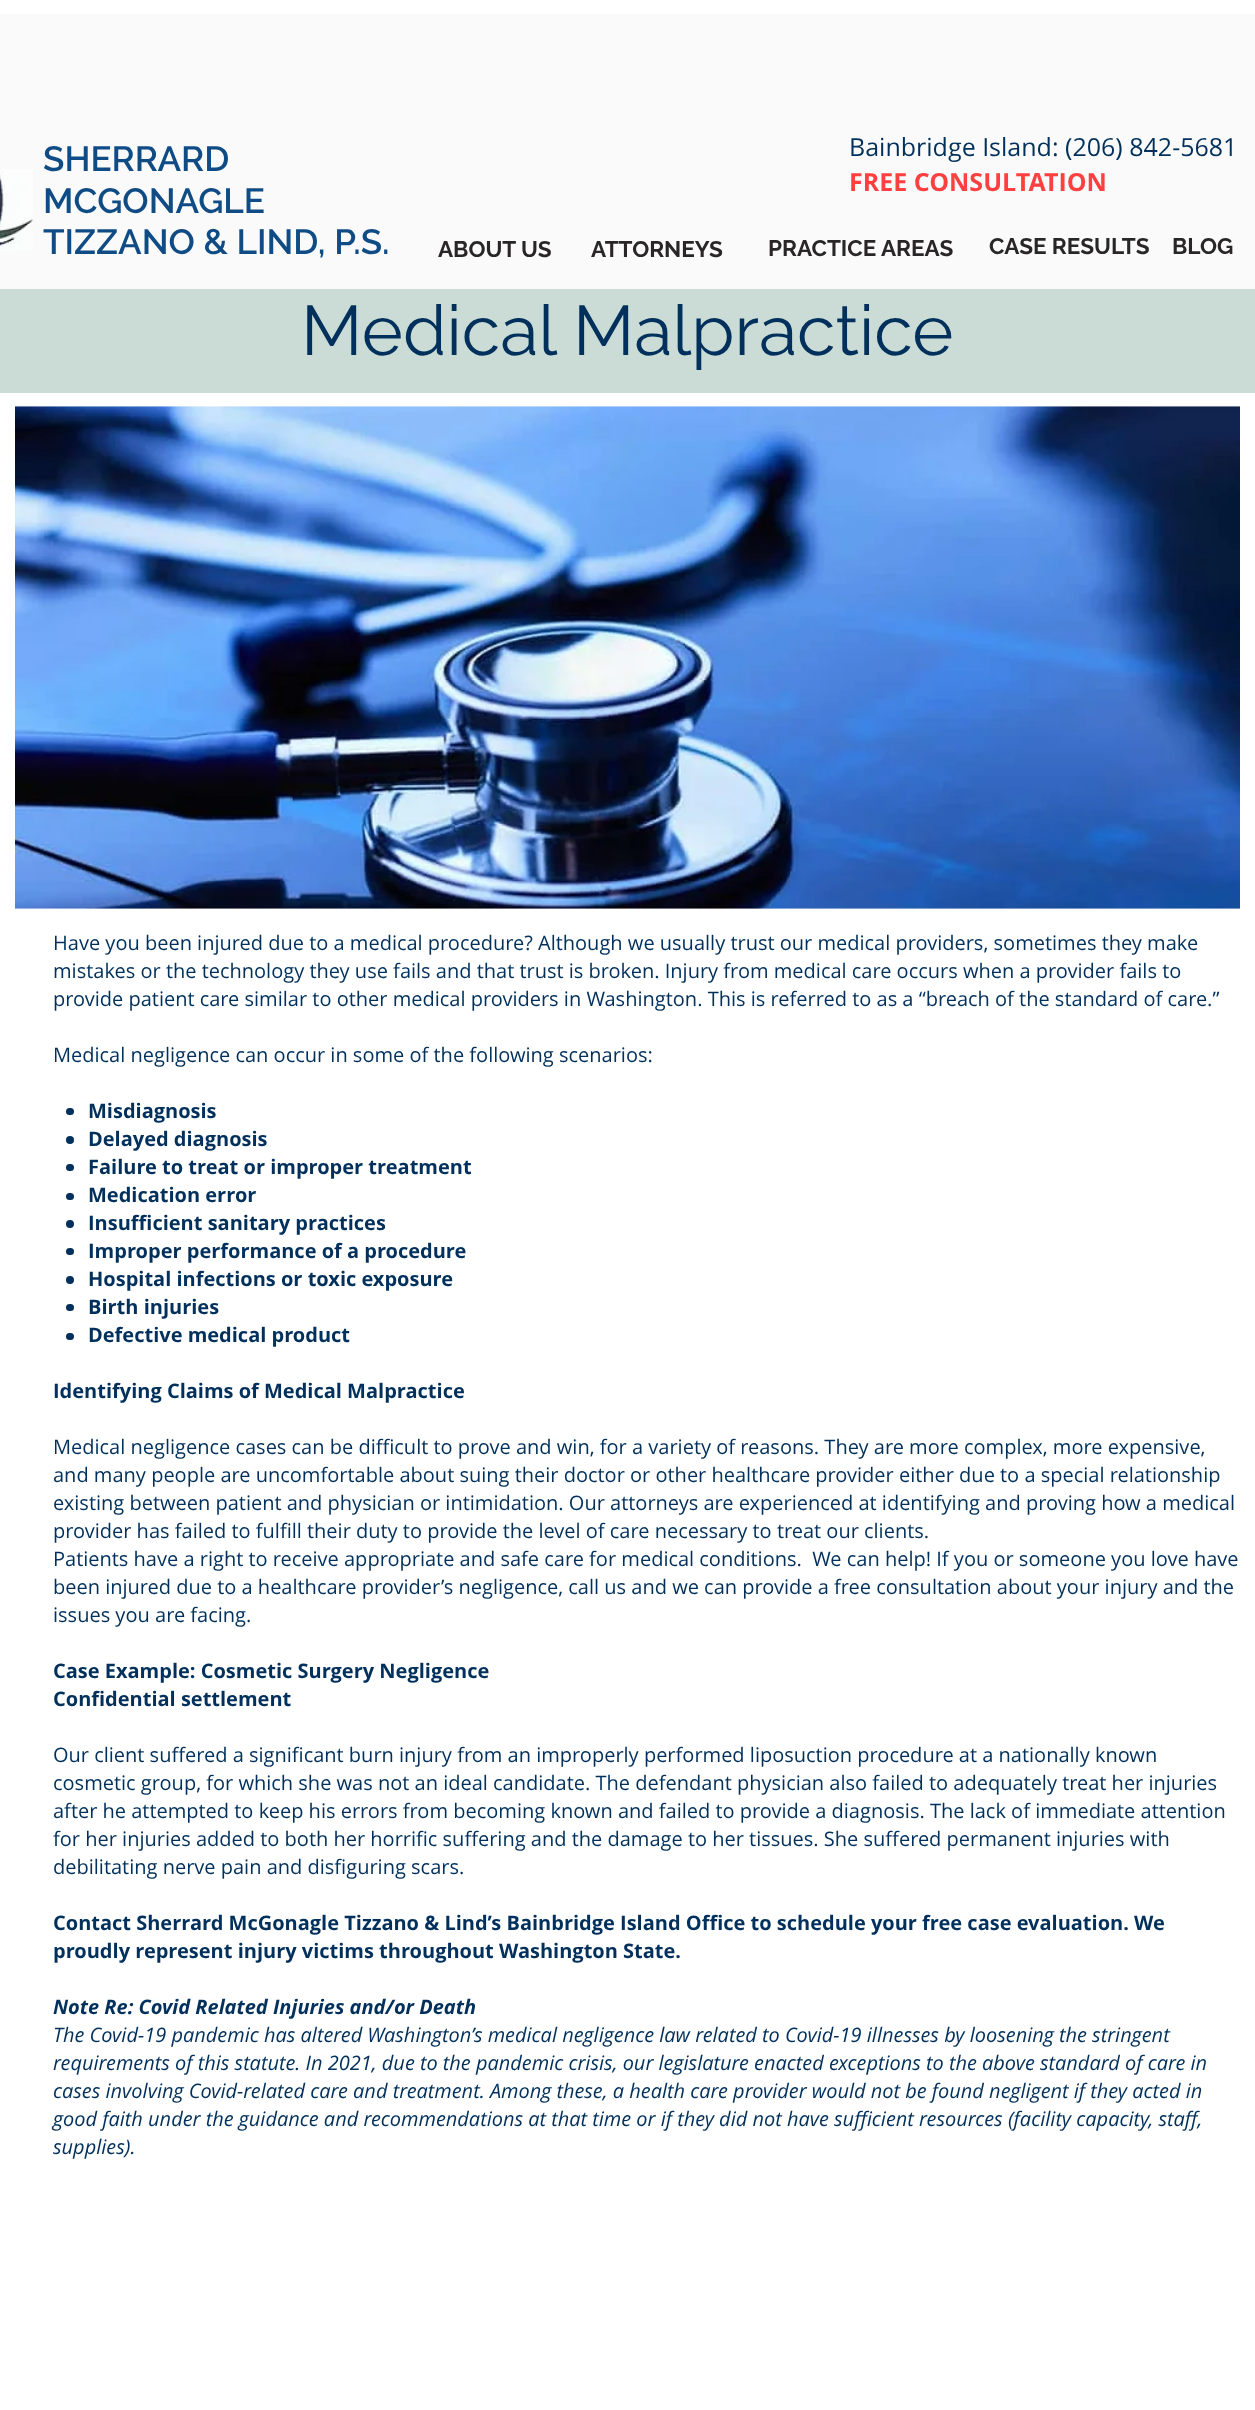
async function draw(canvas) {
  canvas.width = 1255;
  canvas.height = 2410;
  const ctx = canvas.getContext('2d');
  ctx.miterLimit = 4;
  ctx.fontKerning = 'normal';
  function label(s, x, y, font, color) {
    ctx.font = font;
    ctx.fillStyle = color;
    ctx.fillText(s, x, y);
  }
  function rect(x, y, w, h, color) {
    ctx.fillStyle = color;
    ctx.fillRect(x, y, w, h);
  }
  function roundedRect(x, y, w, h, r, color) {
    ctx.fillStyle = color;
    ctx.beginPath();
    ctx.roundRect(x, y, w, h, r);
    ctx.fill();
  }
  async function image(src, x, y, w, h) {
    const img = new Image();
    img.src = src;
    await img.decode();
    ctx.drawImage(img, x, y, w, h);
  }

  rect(0, 0, 1255, 2410, '#fff');
  rect(0, 14, 1255, 275, '#fafafa');
  await image('assets/img1.png', 0, 169, 33, 82);
  label('SHERRARD', 43, 171, '600 35px Raleway', '#0f4c85');
  label('MCGONAGLE', 43, 213, '600 35px Raleway', '#0f4c85');
  label('TIZZANO & LIND, P.S.', 43, 254, '600 35px Raleway', '#0f4c85');
  label('Bainbridge Island: (206) 842-5681', 849, 156, '25px Open Sans', '#00305b');
  label('FREE CONSULTATION', 849, 191, 'bold 25px Open Sans', '#ff4040');
  label('ABOUT US', 438, 257, 'bold 22.5px Raleway', '#282626');
  label('ATTORNEYS', 591, 257, 'bold 22.5px Raleway', '#282626');
  label('PRACTICE AREAS', 768, 256, 'bold 22.5px Raleway', '#282626');
  label('CASE RESULTS', 989, 254, 'bold 22.5px Raleway', '#282626');
  label('BLOG', 1172, 254, 'bold 22.5px Raleway', '#282626');
  rect(0, 289, 1255, 104, '#cbdcd6');
  label('Medical Malpractice', 301, 355, '70px Raleway', '#00305b');
  rect(15, 406, 1225, 503, '#fafafa');
  await image('assets/img2.png', 15, 406, 1225, 503);
  label('Have you been injured due to a medical procedure? Although we usually trust our medical providers, sometimes they make', 53, 950, '20px Open Sans', '#00305b');
  label('mistakes or the technology they use fails and that trust is broken. Injury from medical care occurs when a provider fails to', 53, 978, '20px Open Sans', '#00305b');
  label('provide patient care similar to other medical providers in Washington. This is referred to as a “breach of the standard of care.”', 53, 1006, '20px Open Sans', '#00305b');
  label('Medical negligence can occur in some of the following scenarios:', 53, 1062, '20px Open Sans', '#00305b');
  roundedRect(66, 1108, 8, 7, 3.5, '#00305b');
  label('Misdiagnosis', 88, 1118, 'bold 20px Open Sans', '#00305b');
  ctx.beginPath();
  ctx.arc(70, 1140, 4, 0, 2 * Math.PI);
  ctx.fill();
  label('Delayed diagnosis', 88, 1146, 'bold 20px Open Sans', '#00305b');
  roundedRect(66, 1164, 8, 7, 3.5, '#00305b');
  label('Failure to treat or improper treatment', 88, 1174, 'bold 20px Open Sans', '#00305b');
  roundedRect(66, 1193, 8, 7, 3.5, '#00305b');
  label('Medication error', 88, 1202, 'bold 20px Open Sans', '#00305b');
  ctx.beginPath();
  ctx.arc(70, 1224, 4, 0, 2 * Math.PI);
  ctx.fill();
  label('Insufficient sanitary practices', 88, 1230, 'bold 20px Open Sans', '#00305b');
  roundedRect(66, 1248, 8, 7, 3.5, '#00305b');
  label('Improper performance of a procedure', 88, 1258, 'bold 20px Open Sans', '#00305b');
  ctx.beginPath();
  ctx.arc(70, 1280, 4, 0, 2 * Math.PI);
  ctx.fill();
  label('Hospital infections or toxic exposure', 88, 1286, 'bold 20px Open Sans', '#00305b');
  roundedRect(66, 1304, 8, 7, 3.5, '#00305b');
  label('Birth injuries', 88, 1314, 'bold 20px Open Sans', '#00305b');
  roundedRect(66, 1333, 8, 7, 3.5, '#00305b');
  label('Defective medical product', 88, 1342, 'bold 20px Open Sans', '#00305b');
  label('Identifying Claims of Medical Malpractice', 53, 1398, 'bold 20px Open Sans', '#00305b');
  label('Medical negligence cases can be difficult to prove and win, for a variety of reasons. They are more complex, more expensive,', 53, 1454, '20px Open Sans', '#00305b');
  label('and many people are uncomfortable about suing their doctor or other healthcare provider either due to a special relationship', 53, 1482, '20px Open Sans', '#00305b');
  label('existing between patient and physician or intimidation. Our attorneys are experienced at identifying and proving how a medical', 53, 1510, '20px Open Sans', '#00305b');
  label('provider has failed to fulfill their duty to provide the level of care necessary to treat our clients.', 53, 1538, '20px Open Sans', '#00305b');
  label('Patients have a right to receive appropriate and safe care for medical conditions.  We can help! If you or someone you love have', 53, 1566, '20px Open Sans', '#00305b');
  label('been injured due to a healthcare provider’s negligence, call us and we can provide a free consultation about your injury and the', 53, 1594, '20px Open Sans', '#00305b');
  label('issues you are facing.', 53, 1622, '20px Open Sans', '#00305b');
  label('Case Example: Cosmetic Surgery Negligence', 53, 1678, 'bold 20px Open Sans', '#00305b');
  label('Confidential settlement', 53, 1706, 'bold 20px Open Sans', '#00305b');
  label('Our client suffered a significant burn injury from an improperly performed liposuction procedure at a nationally known', 53, 1762, '20px Open Sans', '#00305b');
  label('cosmetic group, for which she was not an ideal candidate. The defendant physician also failed to adequately treat her injuries', 53, 1790, '20px Open Sans', '#00305b');
  label('after he attempted to keep his errors from becoming known and failed to provide a diagnosis. The lack of immediate attention', 53, 1818, '20px Open Sans', '#00305b');
  label('for her injuries added to both her horrific suffering and the damage to her tissues. She suffered permanent injuries with', 53, 1846, '20px Open Sans', '#00305b');
  label('debilitating nerve pain and disfiguring scars.', 53, 1874, '20px Open Sans', '#00305b');
  label('Contact Sherrard McGonagle Tizzano & Lind’s Bainbridge Island Office to schedule your free case evaluation. We', 53, 1930, 'bold 20px Open Sans', '#00305b');
  label('proudly represent injury victims throughout Washington State.', 53, 1958, 'bold 20px Open Sans', '#00305b');
  label('Note Re: Covid Related Injuries and/or Death', 53, 2014, 'italic bold 20px Open Sans', '#00305b');
  label('The Covid-19 pandemic has altered Washington’s medical negligence law related to Covid-19 illnesses by loosening the stringent', 53, 2042, 'italic 20px Open Sans', '#00305b');
  label('requirements of this statute. In 2021, due to the pandemic crisis, our legislature enacted exceptions to the above standard of care in', 53, 2070, 'italic 20px Open Sans', '#00305b');
  label('cases involving Covid-related care and treatment. Among these, a health care provider would not be found negligent if they acted in', 53, 2098, 'italic 20px Open Sans', '#00305b');
  label('good faith under the guidance and recommendations at that time or if they did not have sufficient resources (facility capacity, staff,', 53, 2126, 'italic 20px Open Sans', '#00305b');
  label('supplies).', 53, 2154, 'italic 20px Open Sans', '#00305b');
}

draw(document.querySelector('canvas'));
